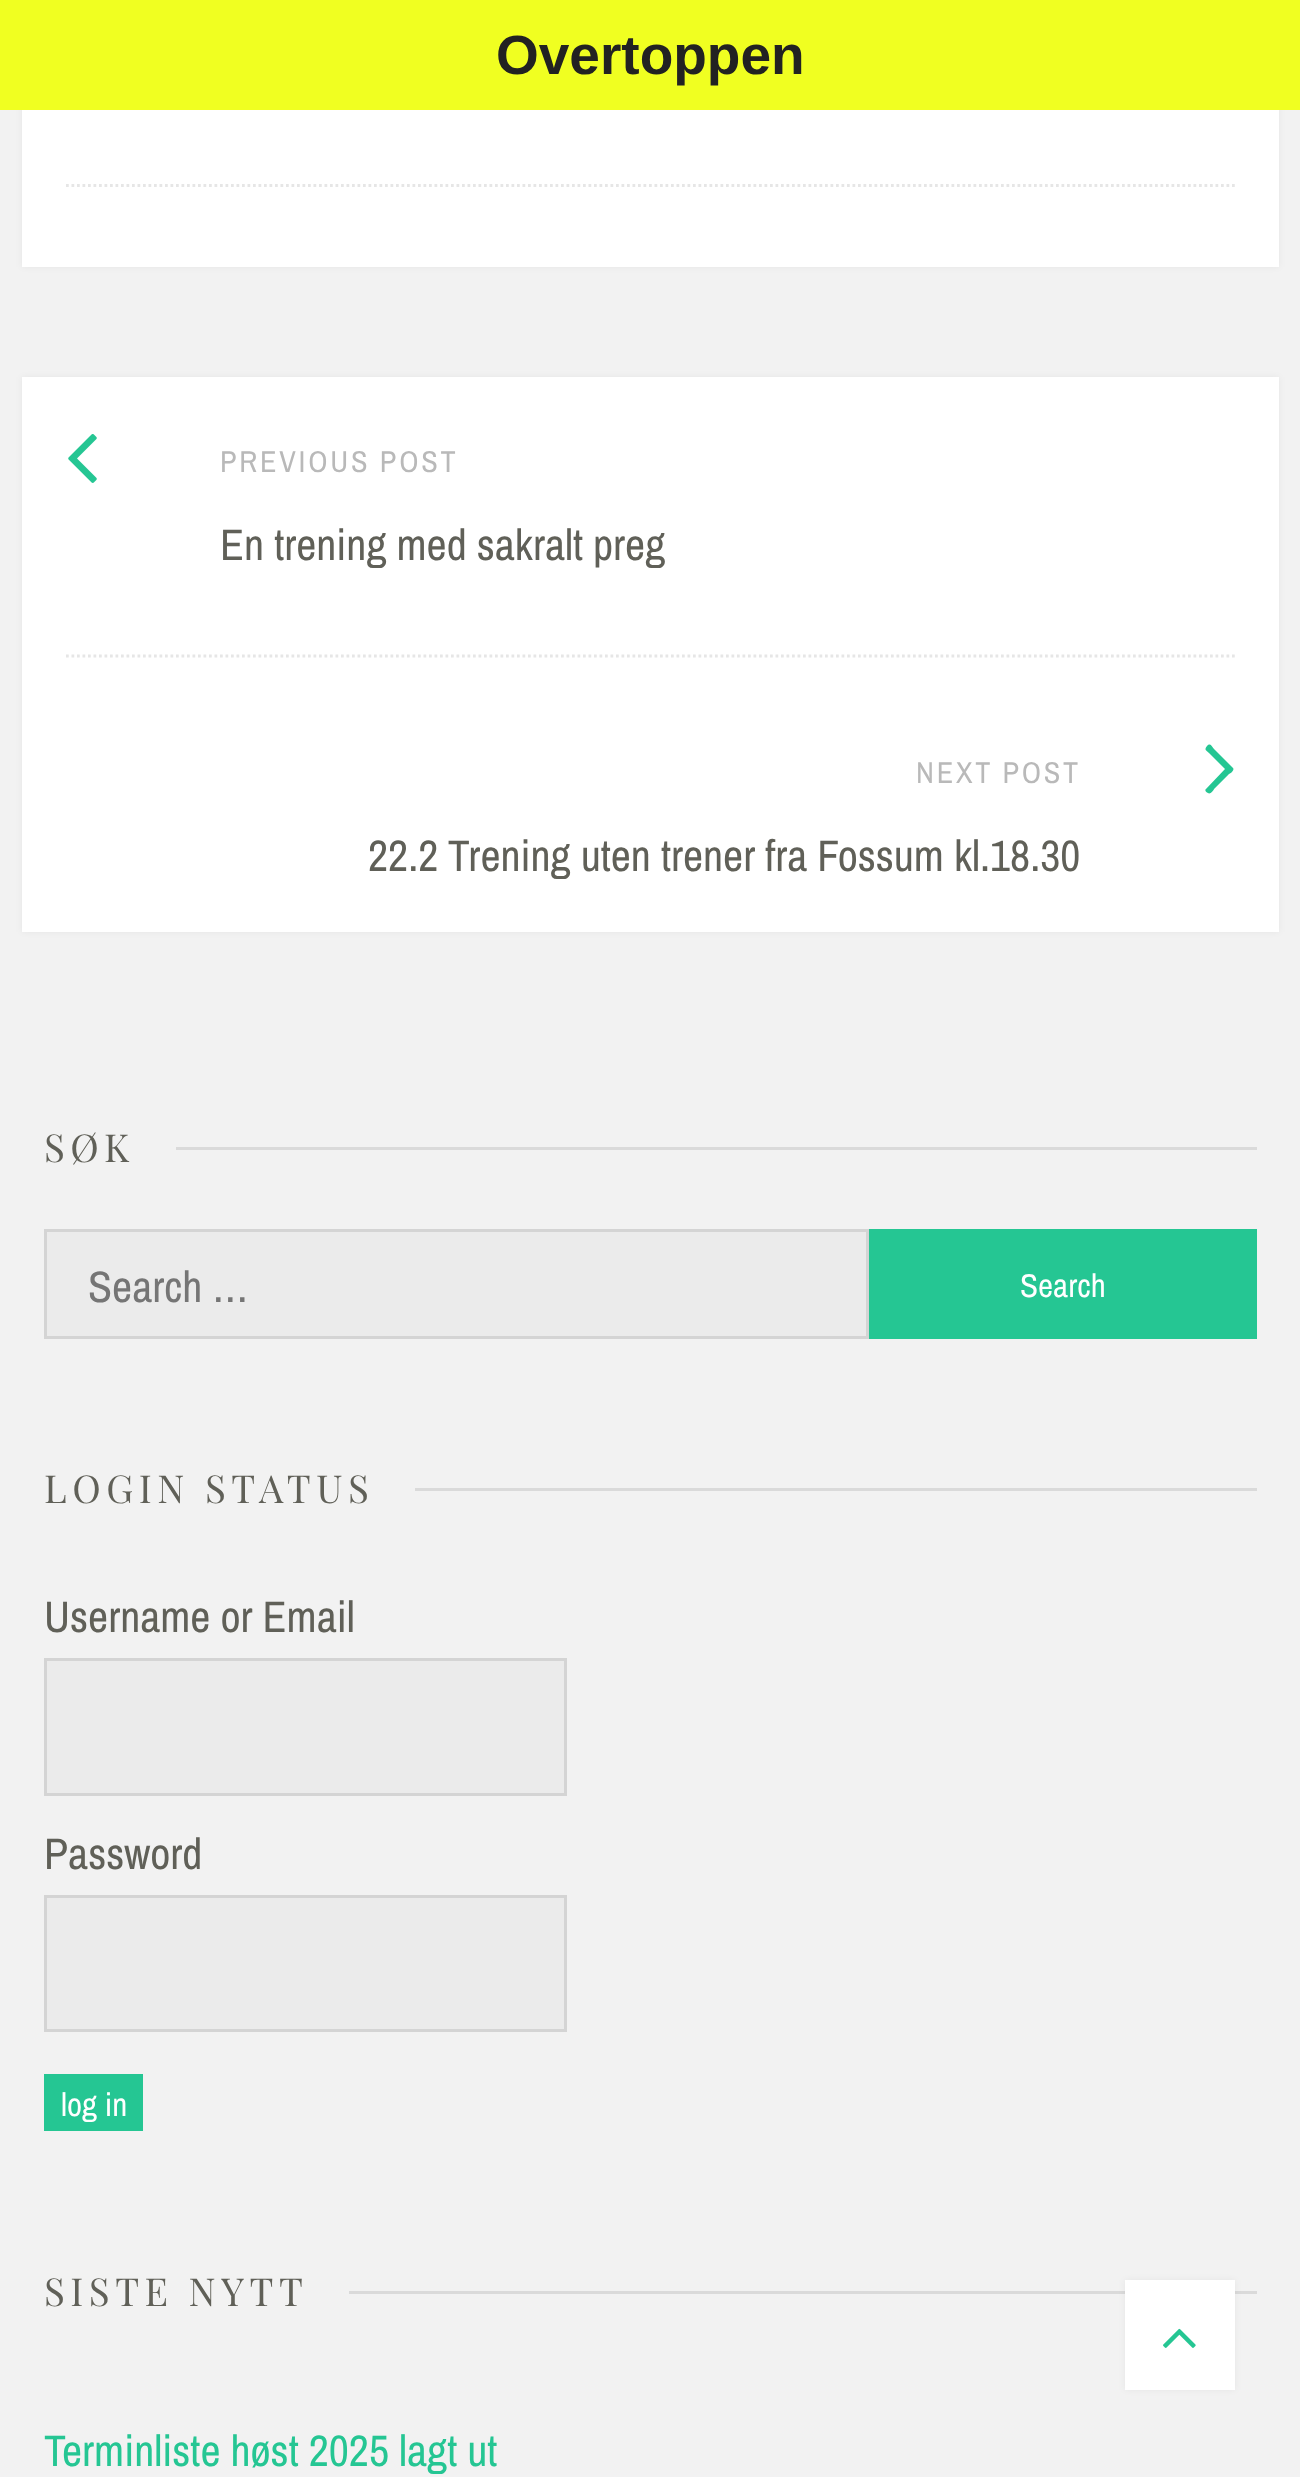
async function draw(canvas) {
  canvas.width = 1300;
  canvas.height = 2477;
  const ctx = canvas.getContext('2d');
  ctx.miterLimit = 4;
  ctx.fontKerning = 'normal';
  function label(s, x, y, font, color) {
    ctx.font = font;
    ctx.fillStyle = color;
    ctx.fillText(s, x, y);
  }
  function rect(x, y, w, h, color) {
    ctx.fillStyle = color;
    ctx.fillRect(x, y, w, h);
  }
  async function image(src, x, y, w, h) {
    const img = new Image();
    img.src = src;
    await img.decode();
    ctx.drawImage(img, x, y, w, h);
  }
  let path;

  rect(0, 0, 1300, 2477, '#f2f2f2');
  ctx.fillStyle = '#0000000d';
  ctx.filter = 'blur(3px)';
  ctx.beginPath();
  ctx.rect(22, -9, 1257, 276);
  ctx.fill();
  ctx.filter = 'none';
  rect(0, 0, 1300, 110, '#f0ff21');
  label('Overtoppen', 496, 74, 'bold 55px Liberation Sans', '#222');
  rect(22, 110, 1257, 157, '#fff');
  path = new Path2D('M66 185.5H1235');
  ctx.strokeStyle = '#e6e6e6';
  ctx.lineWidth = 2.8;
  ctx.setLineDash([2.75, 2.75]);
  ctx.stroke(path);
  ctx.fillStyle = '#0000000d';
  ctx.filter = 'blur(3px)';
  ctx.beginPath();
  ctx.rect(22, 377, 1257, 555);
  ctx.fill();
  ctx.filter = 'none';
  rect(22, 377, 1257, 555, '#fff');
  await image('assets/img1.png', 68, 434, 29, 49);
  ctx.letterSpacing = '2.75px';
  label('PREVIOUS POST', 220, 472, '30.25px Archivo Narrow', '#b9b9b9');
  ctx.letterSpacing = '0px';
  label('En trening med sakralt preg', 220, 560, '44px Archivo Narrow', '#606058');
  path = new Path2D('M66 656H1235');
  ctx.stroke(path);
  ctx.letterSpacing = '2.75px';
  label('NEXT POST', 916, 783, '30.25px Archivo Narrow', '#b9b9b9');
  ctx.letterSpacing = '0px';
  label('22.2 Trening uten trener fra Fossum kl.18.30', 368, 871, '44px Archivo Narrow', '#606058');
  ctx.fillStyle = '#25c693';
  path = new Path2D('M1233 768C1235 770 1230 774 1229 774L1214 789C1214 790 1210 795 1208 793C1207 793 1204 790 1206 789L1225 769L1209 753C1206 750 1204 750 1207 746C1210 743 1211 745 1214 749Z');
  ctx.fill(path);
  ctx.letterSpacing = '5.5px';
  label('SØK', 44, 1162, '38.5px Playfair Display', '#606058');
  rect(176, 1147, 1081, 3, '#dadada');
  ctx.fillStyle = '#ebebeb';
  ctx.beginPath();
  ctx.rect(45.5, 1230.5, 822, 107);
  ctx.fill();
  ctx.strokeStyle = '#d4d4d4';
  ctx.lineWidth = 3;
  ctx.setLineDash([]);
  ctx.stroke();
  ctx.letterSpacing = '0px';
  label('Search …', 88, 1302, '44px Archivo Narrow', '#757575');
  rect(869, 1229, 388, 110, '#25c693');
  label('Search', 1020, 1297, '33px Archivo Narrow', '#fff');
  ctx.letterSpacing = '5.5px';
  label('LOGIN STATUS', 44, 1503, '38.5px Playfair Display', '#606058');
  rect(415, 1488, 842, 3, '#dadada');
  ctx.letterSpacing = '0px';
  label('Username or Email', 44, 1632, '44px Archivo Narrow', '#606058');
  ctx.fillStyle = '#ebebeb';
  ctx.beginPath();
  ctx.rect(45.5, 1659.5, 520, 135);
  ctx.fill();
  ctx.stroke();
  label('Password', 44, 1869, '44px Archivo Narrow', '#606058');
  ctx.fillStyle = '#ebebeb';
  ctx.beginPath();
  ctx.rect(45.5, 1896.5, 520, 134);
  ctx.fill();
  ctx.stroke();
  rect(44, 2074, 99, 57, '#25c693');
  label('log in', 61, 2116, '33px Archivo Narrow', '#fff');
  ctx.letterSpacing = '5.5px';
  label('SISTE NYTT', 44, 2306, '38.5px Playfair Display', '#606058');
  rect(349, 2291, 908, 3, '#dadada');
  ctx.letterSpacing = '0px';
  label('Terminliste høst 2025 lagt ut', 44, 2466, '44px Archivo Narrow', '#25c693');
  ctx.fillStyle = '#0000000d';
  ctx.filter = 'blur(3px)';
  ctx.beginPath();
  ctx.rect(1125, 2280, 110, 110);
  ctx.fill();
  ctx.filter = 'none';
  rect(1125, 2280, 110, 110, '#fff');
  await image('assets/img2.png', 1163, 2328, 33, 20);
}

draw(document.querySelector('canvas'));
